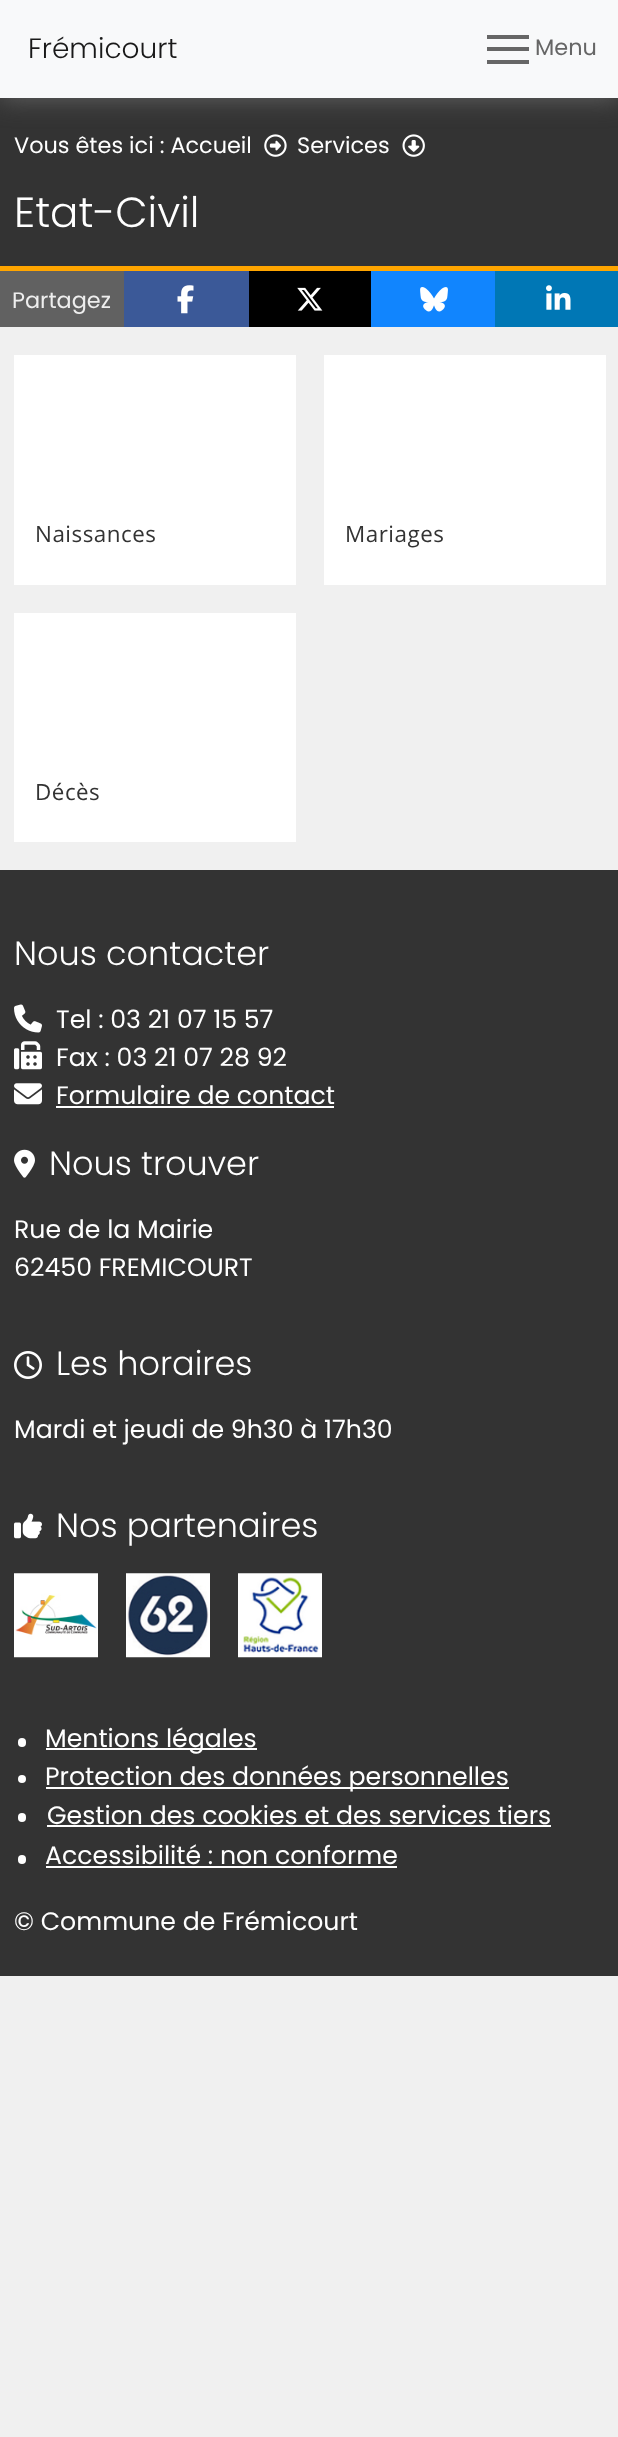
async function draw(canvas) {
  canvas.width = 618;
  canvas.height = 2437;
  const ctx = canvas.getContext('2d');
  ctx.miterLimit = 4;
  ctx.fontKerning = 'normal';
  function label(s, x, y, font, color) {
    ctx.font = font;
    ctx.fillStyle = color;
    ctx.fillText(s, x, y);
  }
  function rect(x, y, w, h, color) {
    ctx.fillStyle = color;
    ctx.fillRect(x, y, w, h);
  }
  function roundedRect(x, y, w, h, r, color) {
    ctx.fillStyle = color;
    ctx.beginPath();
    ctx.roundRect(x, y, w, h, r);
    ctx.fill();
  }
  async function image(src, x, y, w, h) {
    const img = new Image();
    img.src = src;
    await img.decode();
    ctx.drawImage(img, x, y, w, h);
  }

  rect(0, 0, 618, 2437, '#f0f0f0');
  rect(0, 98, 618, 168, '#333');
  await image('assets/img1.png', 264, 134, 23, 23);
  await image('assets/img2.png', 402, 134, 23, 23);
  ctx.fillStyle = '#666';
  ctx.filter = 'blur(13px)';
  ctx.beginPath();
  ctx.rect(0, 0, 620, 98);
  ctx.fill();
  ctx.filter = 'none';
  rect(0, 0, 618, 98, '#f8f9fa');
  label('Frémicourt', 28, 58, '300 28px Poppins', '#191919');
  rect(487, 35, 42, 4, '#666');
  rect(487, 47, 42, 4, '#666');
  rect(487, 60, 42, 4, '#666');
  label('Menu', 535, 55, '22.4px Poppins', '#666');
  label('Vous êtes ici : Accueil', 14, 153, '22.4px Poppins', '#fff');
  label('Services', 297, 153, '22.4px Poppins', '#fff');
  label('Etat-Civil', 14, 227, '300 42px Poppins', '#fff');
  rect(0, 266, 618, 5, '#ffa500');
  rect(0, 271, 124, 56, '#616161');
  label('Partagez', 12, 308, '22.4px Poppins', '#eee');
  rect(124, 271, 125, 56, '#3b5998');
  await image('assets/img3.png', 177, 285, 17, 29);
  rect(249, 271, 122, 56, '#000');
  await image('assets/img4.png', 297, 287, 26, 24);
  rect(371, 271, 124, 56, '#1185fe');
  await image('assets/img5.png', 420, 287, 28, 25);
  rect(495, 271, 123, 56, '#0077b5');
  await image('assets/img6.png', 546, 285, 25, 25);
  rect(14, 355, 282, 230, '#fff');
  ctx.letterSpacing = '0.5px';
  label('Naissances', 35, 542, '22.4px Open Sans', '#333');
  rect(324, 355, 282, 230, '#fff');
  label('Mariages', 345, 542, '22.4px Open Sans', '#333');
  rect(14, 613, 282, 229, '#fff');
  label('Décès', 35, 800, '22.4px Open Sans', '#333');
  rect(0, 870, 618, 1106, '#333');
  ctx.letterSpacing = '0px';
  label('Nous contacter', 14, 965, '300 33.5px Poppins', '#fff');
  await image('assets/img7.png', 14, 1004, 28, 29);
  label('Tel : 03 21 07 15 57', 56, 1028, '25.2px Poppins', '#fff');
  await image('assets/img8.png', 14, 1041, 28, 29);
  label('Fax : 03 21 07 28 92', 56, 1066, '25.2px Poppins', '#fff');
  await image('assets/img9.png', 14, 1083, 28, 22);
  label('Formulaire de contact', 56, 1104, '25.2px Poppins', '#fff');
  rect(56, 1106, 278, 2, '#fff');
  await image('assets/img10.png', 14, 1149, 21, 29);
  label('Nous trouver', 49, 1175, '300 33.5px Poppins', '#fff');
  label('Rue de la Mairie', 14, 1238, '25.2px Poppins', '#fff');
  label('62450 FREMICOURT', 14, 1276, '25.2px Poppins', '#fff');
  await image('assets/img11.png', 14, 1351, 28, 28);
  label('Les horaires', 56, 1375, '300 33.5px Poppins', '#fff');
  label('Mardi et jeudi de 9h30 à 17h30', 14, 1438, '25.2px Poppins', '#fff');
  await image('assets/img12.png', 14, 1513, 28, 26);
  label('Nos partenaires', 56, 1537, '300 33.5px Poppins', '#fff');
  await image('assets/img13.png', 14, 1573, 84, 85);
  await image('assets/img14.png', 126, 1573, 84, 85);
  await image('assets/img15.png', 238, 1573, 84, 85);
  roundedRect(18, 1738, 8, 9, 4, '#fff');
  rect(46, 1748, 211, 2, '#fff');
  label('Mentions légales', 45, 1747, '25.2px Poppins', '#fff');
  ctx.beginPath();
  ctx.arc(22, 1779, 4, 0, 2 * Math.PI);
  ctx.fill();
  rect(46, 1787, 463, 2, '#fff');
  label('Protection des données personnelles', 45, 1785, '25.2px Poppins', '#fff');
  roundedRect(18, 1813, 8, 9, 4, '#fff');
  label('Gestion des cookies et des services tiers', 47, 1824, '25.2px Poppins', '#fff');
  rect(47, 1825, 504, 2, '#fff');
  roundedRect(18, 1855, 8, 9, 4, '#fff');
  label('Accessibilité : non conforme', 45, 1864, '25.2px Poppins', '#fff');
  rect(46, 1866, 351, 2, '#fff');
  label('© Commune de Frémicourt', 14, 1930, '25.2px Poppins', '#fff');
}

draw(document.querySelector('canvas'));
